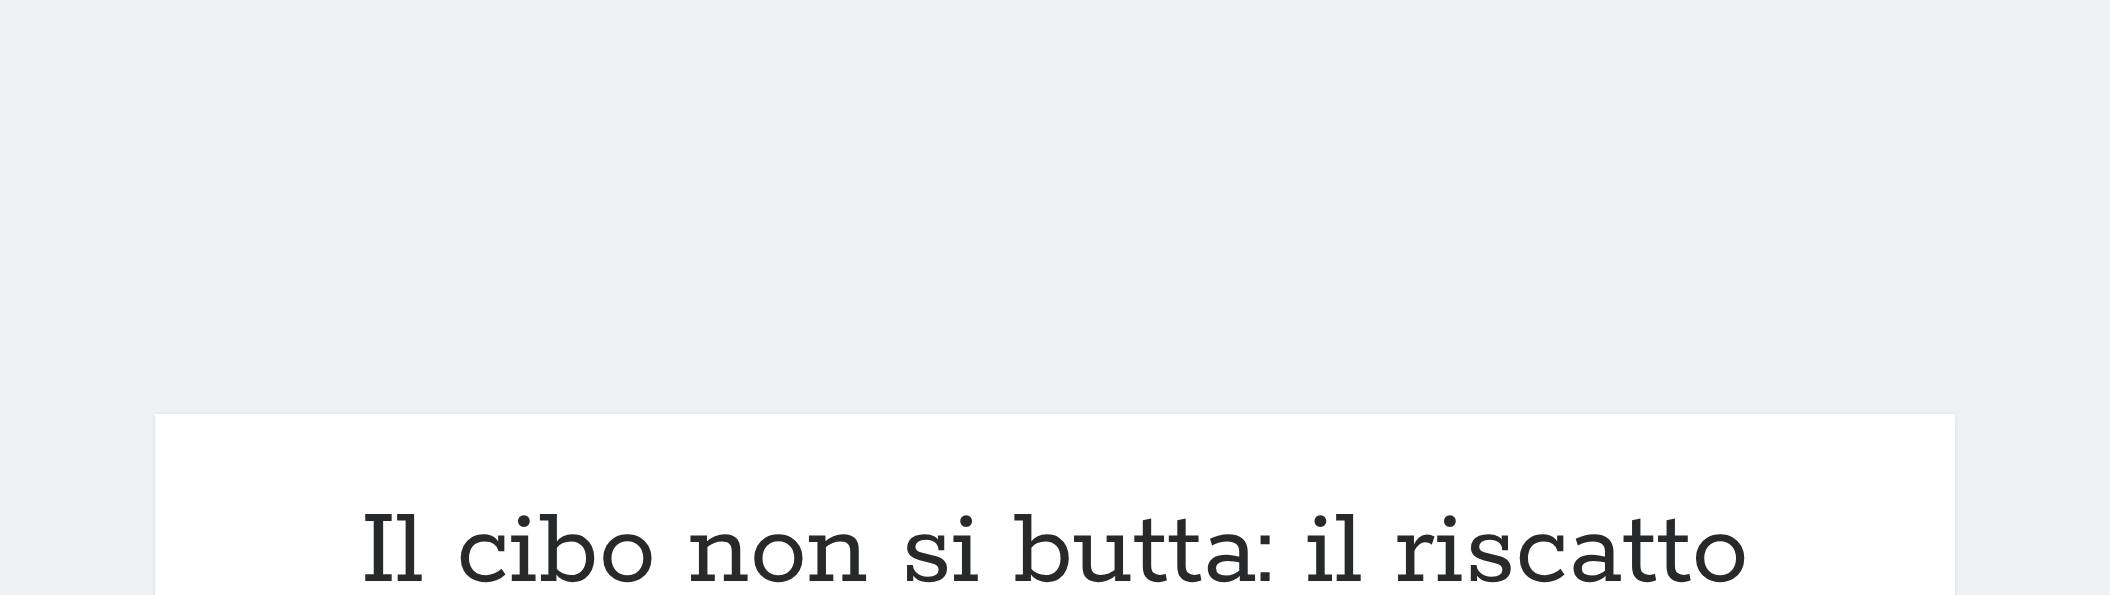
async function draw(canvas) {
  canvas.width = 2110;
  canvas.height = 595;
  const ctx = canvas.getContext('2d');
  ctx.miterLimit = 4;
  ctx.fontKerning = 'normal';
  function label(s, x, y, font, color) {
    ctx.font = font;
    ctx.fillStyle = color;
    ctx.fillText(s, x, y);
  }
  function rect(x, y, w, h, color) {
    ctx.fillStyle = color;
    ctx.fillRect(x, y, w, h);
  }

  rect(0, 0, 2110, 595, '#f0f1f2');
  ctx.fillStyle = '#272b2f1a';
  ctx.filter = 'blur(2px)';
  ctx.beginPath();
  ctx.rect(155, 414, 1800, 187);
  ctx.fill();
  ctx.filter = 'none';
  rect(155, 414, 1800, 181, '#fff');
  label('Il cibo non si butta: il riscatto', 361, 581, '114.75px Rokkitt', '#27292b');
}

draw(document.querySelector('canvas'));
